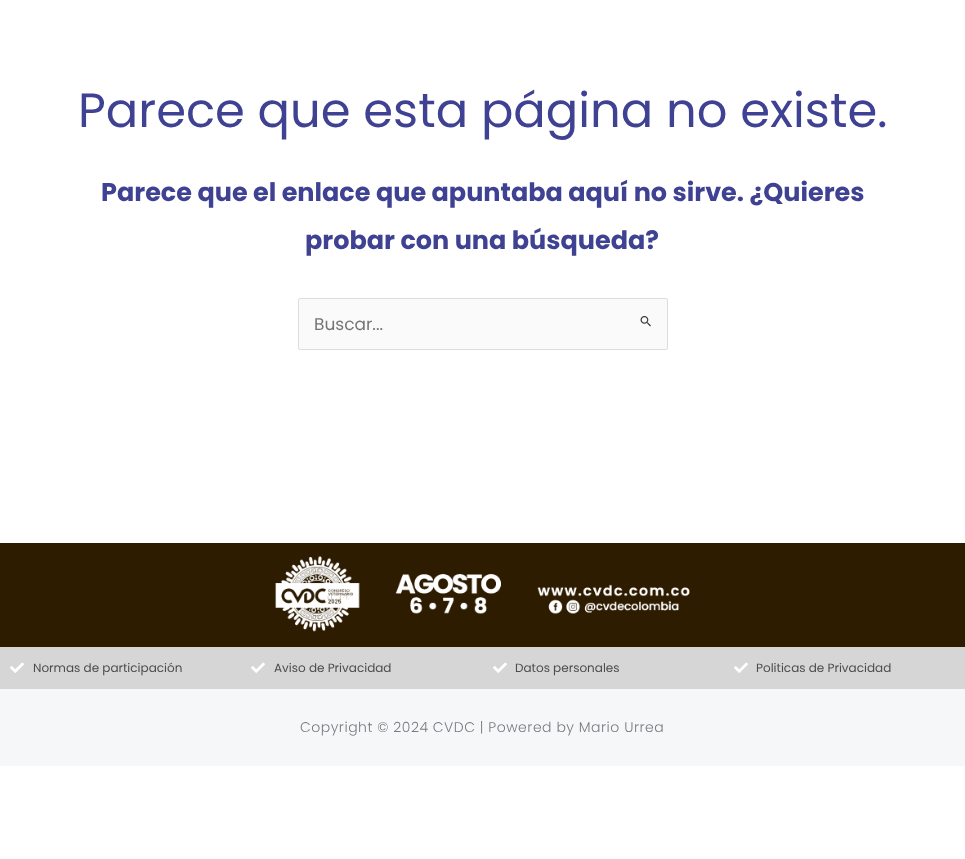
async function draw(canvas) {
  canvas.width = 965;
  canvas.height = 859;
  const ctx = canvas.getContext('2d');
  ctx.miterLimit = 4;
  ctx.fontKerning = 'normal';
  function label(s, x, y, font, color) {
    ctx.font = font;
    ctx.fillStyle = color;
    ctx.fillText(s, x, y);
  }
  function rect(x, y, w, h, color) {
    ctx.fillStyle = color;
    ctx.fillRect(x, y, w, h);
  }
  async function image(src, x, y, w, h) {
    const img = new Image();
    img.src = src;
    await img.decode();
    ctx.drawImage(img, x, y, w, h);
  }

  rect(0, 0, 965, 859, '#fff');
  label('Parece que esta página no existe.', 78, 127, '48px Poppins', '#3f4193');
  label('Parece que el enlace que apuntaba aquí no sirve. ¿Quieres', 101, 201, 'bold 25.5px Poppins', '#3f4193');
  label('probar con una búsqueda?', 305, 249, 'bold 25.5px Poppins', '#3f4193');
  ctx.fillStyle = '#fafafa';
  ctx.beginPath();
  ctx.roundRect(298.5, 298.5, 369, 51, 1.5);
  ctx.fill();
  ctx.strokeStyle = '#ddd';
  ctx.stroke();
  label('Buscar...', 314, 330, '17px Poppins', '#757575');
  await image('assets/img1.png', 640, 316, 11, 11);
  rect(0, 543, 965, 104, '#2d1c00');
  await image('assets/img2.png', 275, 556, 415, 76);
  rect(0, 647, 965, 42, '#d6d6d6');
  await image('assets/img3.png', 10, 662, 14, 11);
  label('Normas de participación', 33, 672, '12px Poppins', '#4c4c4c');
  await image('assets/img3.png', 251, 662, 14, 11);
  label('Aviso de Privacidad', 274, 672, '12px Poppins', '#4c4c4c');
  await image('assets/img3.png', 493, 662, 14, 11);
  label('Datos personales', 515, 672, '12px Poppins', '#4c4c4c');
  await image('assets/img3.png', 734, 662, 14, 11);
  label('Politicas de Privacidad', 756, 672, '12px Poppins', '#4c4c4c');
  rect(0, 689, 965, 77, '#f6f7f8');
  ctx.letterSpacing = '0.5px';
  label('Copyright © 2024 CVDC | Powered by Mario Urrea', 300, 732, '300 14px Poppins', '#797b7f');
}

draw(document.querySelector('canvas'));
